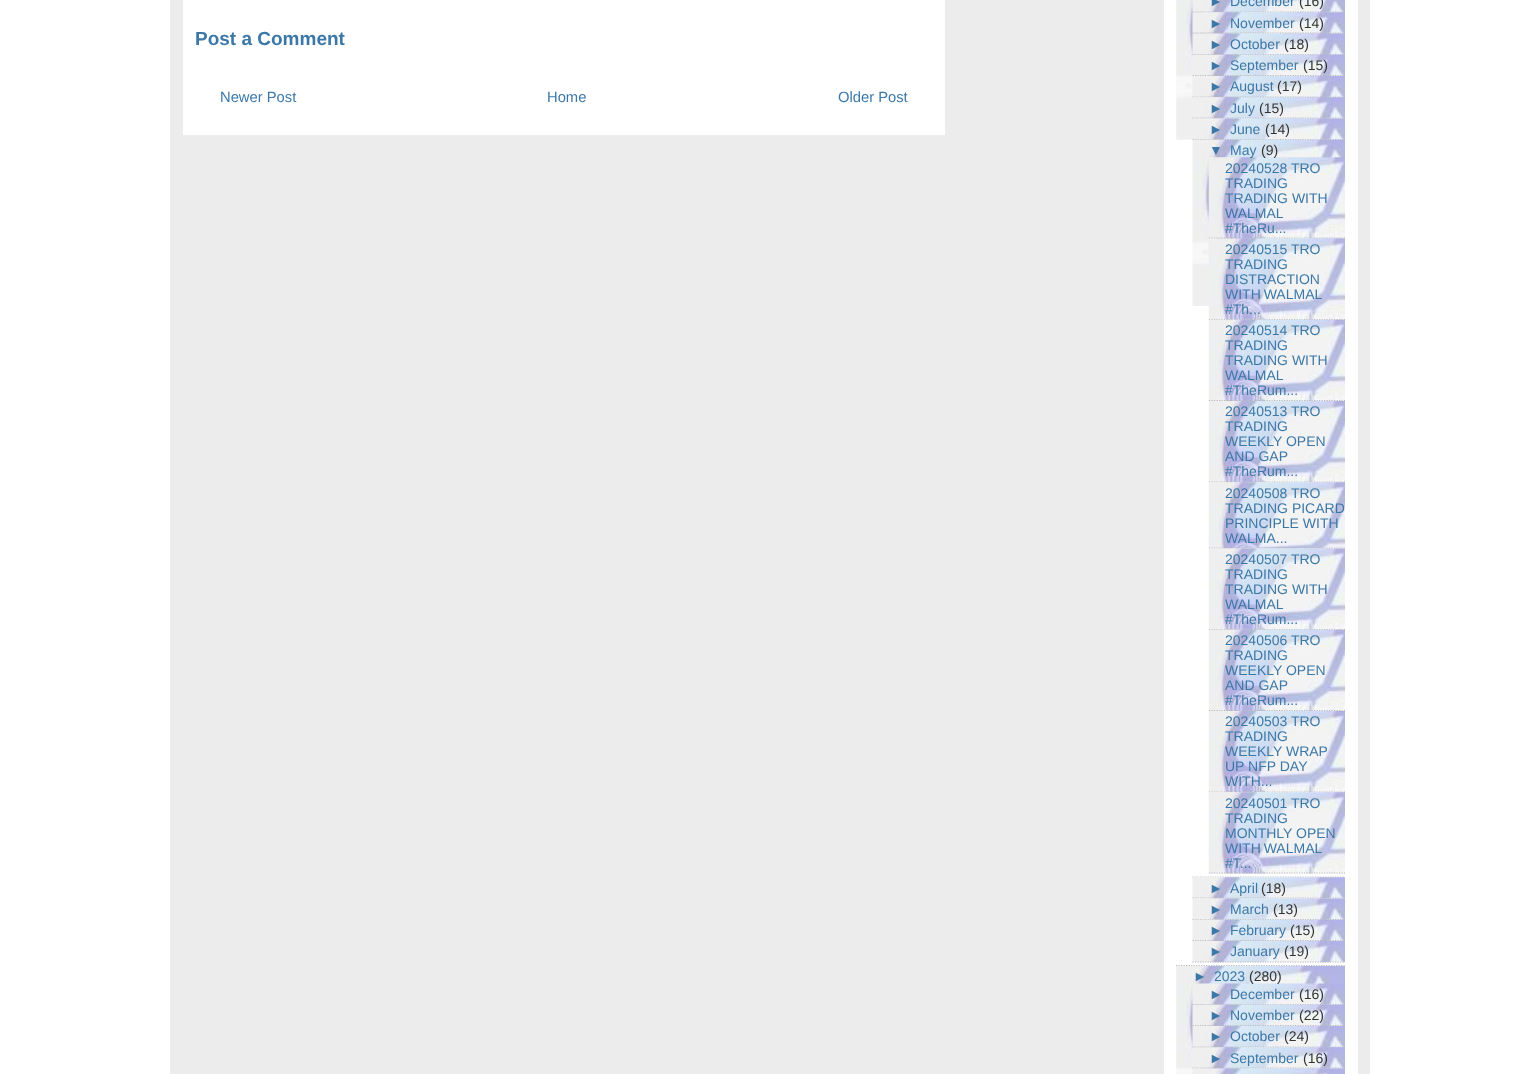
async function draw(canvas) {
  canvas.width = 1540;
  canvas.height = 1074;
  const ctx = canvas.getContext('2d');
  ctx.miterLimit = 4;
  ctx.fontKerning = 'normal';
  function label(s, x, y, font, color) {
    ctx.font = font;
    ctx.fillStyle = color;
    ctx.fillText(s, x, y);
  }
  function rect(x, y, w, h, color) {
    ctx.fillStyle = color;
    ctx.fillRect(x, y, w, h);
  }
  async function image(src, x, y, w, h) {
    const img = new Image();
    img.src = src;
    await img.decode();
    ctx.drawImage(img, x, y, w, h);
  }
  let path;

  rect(0, 0, 1540, 1074, '#fff');
  rect(170, 0, 1200, 1074, '#ececec');
  rect(183, 0, 762, 135, '#fff');
  label('Post a Comment', 195, 45, 'bold 19px Liberation Sans', '#3c78a7');
  label('Newer Post', 220, 102, '14.75px Liberation Sans', '#3c78a7');
  label('Home', 547, 102, '14.75px Liberation Sans', '#3c78a7');
  label('Older Post', 838, 102, '14.75px Liberation Sans', '#3c78a7');
  rect(1164, 0, 194, 1074, '#fff');
  await image('assets/img1.png', 1176, 0, 169, 140);
  path = new Path2D('M1176 965.5H1345');
  ctx.strokeStyle = '#bbb';
  ctx.lineWidth = 1.2;
  ctx.setLineDash([1.25, 1.25]);
  ctx.stroke(path);
  await image('assets/img2.png', 1192, 0, 153, 13);
  path = new Path2D('M1192.5 12H1345');
  ctx.stroke(path);
  label('►', 1209, 6, '14px Liberation Sans', '#3c78a7');
  label('December', 1230, 6, '14px Liberation Sans', '#3c78a7');
  label('(16)', 1299, 6, '14px Liberation Sans', '#333');
  await image('assets/img3.png', 1192, 12, 153, 22);
  path = new Path2D('M1192.5 33H1345');
  ctx.stroke(path);
  label('►', 1209, 28, '14px Liberation Sans', '#3c78a7');
  label('November', 1230, 28, '14px Liberation Sans', '#3c78a7');
  label('(14)', 1299, 28, '14px Liberation Sans', '#333');
  await image('assets/img4.png', 1192, 33, 153, 22);
  path = new Path2D('M1192.5 54.5H1345');
  ctx.stroke(path);
  label('►', 1209, 49, '14px Liberation Sans', '#3c78a7');
  label('October', 1230, 49, '14px Liberation Sans', '#3c78a7');
  label('(18)', 1284, 49, '14px Liberation Sans', '#333');
  await image('assets/img5.png', 1192, 54, 153, 22);
  path = new Path2D('M1192.5 75.5H1345');
  ctx.stroke(path);
  label('►', 1209, 70, '14px Liberation Sans', '#3c78a7');
  label('September', 1230, 70, '14px Liberation Sans', '#3c78a7');
  label('(15)', 1303, 70, '14px Liberation Sans', '#333');
  await image('assets/img6.png', 1192, 76, 153, 22);
  path = new Path2D('M1192.5 97H1345');
  ctx.stroke(path);
  label('►', 1209, 91, '14px Liberation Sans', '#3c78a7');
  label('August', 1230, 91, '14px Liberation Sans', '#3c78a7');
  label('(17)', 1277, 91, '14px Liberation Sans', '#333');
  await image('assets/img7.png', 1192, 97, 153, 22);
  path = new Path2D('M1192.5 118H1345');
  ctx.stroke(path);
  label('►', 1209, 113, '14px Liberation Sans', '#3c78a7');
  label('July', 1230, 113, '14px Liberation Sans', '#3c78a7');
  label('(15)', 1259, 113, '14px Liberation Sans', '#333');
  await image('assets/img8.png', 1193, 118, 152, 22);
  path = new Path2D('M1192.5 139.5H1345');
  ctx.stroke(path);
  label('►', 1209, 134, '14px Liberation Sans', '#3c78a7');
  label('June', 1230, 134, '14px Liberation Sans', '#3c78a7');
  label('(14)', 1265, 134, '14px Liberation Sans', '#333');
  await image('assets/img9.png', 1192, 139, 153, 167);
  path = new Path2D('M1192.5 877H1345');
  ctx.stroke(path);
  label('▼', 1209, 155, '14px Liberation Sans', '#3c78a7');
  await image('assets/img10.png', 1208, 157, 137, 82);
  label('May', 1230, 155, '14px Liberation Sans', '#3c78a7');
  label('(9)', 1261, 155, '14px Liberation Sans', '#333');
  path = new Path2D('M1209 238H1345');
  ctx.stroke(path);
  label('20240528 TRO', 1225, 173, '14px Liberation Sans', '#3c78a7');
  label('TRADING', 1225, 188, '14px Liberation Sans', '#3c78a7');
  label('TRADING WITH', 1225, 203, '14px Liberation Sans', '#3c78a7');
  label('WALMAL', 1225, 218, '14px Liberation Sans', '#3c78a7');
  label('#TheRu...', 1225, 233, '14px Liberation Sans', '#3c78a7');
  await image('assets/img11.png', 1208, 238, 137, 82);
  path = new Path2D('M1209 319.5H1345');
  ctx.stroke(path);
  label('20240515 TRO', 1225, 254, '14px Liberation Sans', '#3c78a7');
  label('TRADING', 1225, 269, '14px Liberation Sans', '#3c78a7');
  label('DISTRACTION', 1225, 284, '14px Liberation Sans', '#3c78a7');
  ctx.wordSpacing = '-1px';
  label('WITH WALMAL', 1225, 299, '14px Liberation Sans', '#3c78a7');
  ctx.wordSpacing = '0px';
  label('#Th...', 1225, 314, '14px Liberation Sans', '#3c78a7');
  await image('assets/img12.png', 1208, 319, 137, 82);
  path = new Path2D('M1209 400.5H1345');
  ctx.stroke(path);
  label('20240514 TRO', 1225, 335, '14px Liberation Sans', '#3c78a7');
  label('TRADING', 1225, 350, '14px Liberation Sans', '#3c78a7');
  label('TRADING WITH', 1225, 365, '14px Liberation Sans', '#3c78a7');
  label('WALMAL', 1225, 380, '14px Liberation Sans', '#3c78a7');
  label('#TheRum...', 1225, 395, '14px Liberation Sans', '#3c78a7');
  await image('assets/img13.png', 1208, 401, 137, 82);
  path = new Path2D('M1209 482H1345');
  ctx.stroke(path);
  label('20240513 TRO', 1225, 416, '14px Liberation Sans', '#3c78a7');
  label('TRADING', 1225, 431, '14px Liberation Sans', '#3c78a7');
  label('WEEKLY OPEN', 1225, 446, '14px Liberation Sans', '#3c78a7');
  label('AND GAP', 1225, 461, '14px Liberation Sans', '#3c78a7');
  label('#TheRum...', 1225, 476, '14px Liberation Sans', '#3c78a7');
  await image('assets/img14.png', 1208, 482, 137, 67);
  path = new Path2D('M1209 548H1345');
  ctx.stroke(path);
  label('20240508 TRO', 1225, 498, '14px Liberation Sans', '#3c78a7');
  label('TRADING PICARD', 1225, 513, '14px Liberation Sans', '#3c78a7');
  label('PRINCIPLE WITH', 1225, 528, '14px Liberation Sans', '#3c78a7');
  label('WALMA...', 1225, 543, '14px Liberation Sans', '#3c78a7');
  await image('assets/img15.png', 1208, 548, 137, 82);
  path = new Path2D('M1209 629.5H1345');
  ctx.stroke(path);
  label('20240507 TRO', 1225, 564, '14px Liberation Sans', '#3c78a7');
  label('TRADING', 1225, 579, '14px Liberation Sans', '#3c78a7');
  label('TRADING WITH', 1225, 594, '14px Liberation Sans', '#3c78a7');
  label('WALMAL', 1225, 609, '14px Liberation Sans', '#3c78a7');
  label('#TheRum...', 1225, 624, '14px Liberation Sans', '#3c78a7');
  await image('assets/img12.png', 1208, 629, 137, 82);
  path = new Path2D('M1209 710.5H1345');
  ctx.stroke(path);
  label('20240506 TRO', 1225, 645, '14px Liberation Sans', '#3c78a7');
  label('TRADING', 1225, 660, '14px Liberation Sans', '#3c78a7');
  label('WEEKLY OPEN', 1225, 675, '14px Liberation Sans', '#3c78a7');
  label('AND GAP', 1225, 690, '14px Liberation Sans', '#3c78a7');
  label('#TheRum...', 1225, 705, '14px Liberation Sans', '#3c78a7');
  await image('assets/img13.png', 1208, 711, 137, 82);
  path = new Path2D('M1209 792H1345');
  ctx.stroke(path);
  label('20240503 TRO', 1225, 726, '14px Liberation Sans', '#3c78a7');
  label('TRADING', 1225, 741, '14px Liberation Sans', '#3c78a7');
  label('WEEKLY WRAP', 1225, 756, '14px Liberation Sans', '#3c78a7');
  label('UP NFP DAY', 1225, 771, '14px Liberation Sans', '#3c78a7');
  label('WITH...', 1225, 786, '14px Liberation Sans', '#3c78a7');
  await image('assets/img16.png', 1208, 792, 137, 82);
  path = new Path2D('M1209 873H1345');
  ctx.stroke(path);
  label('20240501 TRO', 1225, 808, '14px Liberation Sans', '#3c78a7');
  label('TRADING', 1225, 823, '14px Liberation Sans', '#3c78a7');
  label('MONTHLY OPEN', 1225, 838, '14px Liberation Sans', '#3c78a7');
  ctx.wordSpacing = '-1px';
  label('WITH WALMAL', 1225, 853, '14px Liberation Sans', '#3c78a7');
  ctx.wordSpacing = '0px';
  label('#T...', 1225, 868, '14px Liberation Sans', '#3c78a7');
  await image('assets/img17.png', 1192, 877, 153, 22);
  path = new Path2D('M1192.5 898H1345');
  ctx.stroke(path);
  label('►', 1209, 893, '14px Liberation Sans', '#3c78a7');
  label('April', 1230, 893, '14px Liberation Sans', '#3c78a7');
  label('(18)', 1261, 893, '14px Liberation Sans', '#333');
  await image('assets/img18.png', 1192, 898, 153, 22);
  path = new Path2D('M1192.5 919.5H1345');
  ctx.stroke(path);
  label('►', 1209, 914, '14px Liberation Sans', '#3c78a7');
  label('March', 1230, 914, '14px Liberation Sans', '#3c78a7');
  label('(13)', 1273, 914, '14px Liberation Sans', '#333');
  await image('assets/img19.png', 1192, 919, 153, 22);
  path = new Path2D('M1192.5 940.5H1345');
  ctx.stroke(path);
  label('►', 1209, 935, '14px Liberation Sans', '#3c78a7');
  label('February', 1230, 935, '14px Liberation Sans', '#3c78a7');
  label('(15)', 1290, 935, '14px Liberation Sans', '#333');
  await image('assets/img20.png', 1192, 941, 153, 22);
  path = new Path2D('M1192.5 962H1345');
  ctx.stroke(path);
  label('►', 1209, 956, '14px Liberation Sans', '#3c78a7');
  label('January', 1230, 956, '14px Liberation Sans', '#3c78a7');
  label('(19)', 1284, 956, '14px Liberation Sans', '#333');
  await image('assets/img21.png', 1176, 966, 169, 108);
  label('►', 1193, 981, '14px Liberation Sans', '#3c78a7');
  label('2023', 1214, 981, '14px Liberation Sans', '#3c78a7');
  await image('assets/img22.png', 1192, 983, 153, 22);
  label('(280)', 1249, 981, '14px Liberation Sans', '#333');
  path = new Path2D('M1192.5 1004.5H1345');
  ctx.stroke(path);
  label('►', 1209, 999, '14px Liberation Sans', '#3c78a7');
  label('December', 1230, 999, '14px Liberation Sans', '#3c78a7');
  label('(16)', 1299, 999, '14px Liberation Sans', '#333');
  await image('assets/img23.png', 1192, 1004, 153, 22);
  path = new Path2D('M1192.5 1025.5H1345');
  ctx.stroke(path);
  label('►', 1209, 1020, '14px Liberation Sans', '#3c78a7');
  label('November', 1230, 1020, '14px Liberation Sans', '#3c78a7');
  label('(22)', 1299, 1020, '14px Liberation Sans', '#333');
  await image('assets/img24.png', 1192, 1026, 153, 22);
  path = new Path2D('M1192.5 1047H1345');
  ctx.stroke(path);
  label('►', 1209, 1041, '14px Liberation Sans', '#3c78a7');
  label('October', 1230, 1041, '14px Liberation Sans', '#3c78a7');
  label('(24)', 1284, 1041, '14px Liberation Sans', '#333');
  await image('assets/img25.png', 1192, 1047, 153, 22);
  path = new Path2D('M1192.5 1068H1345');
  ctx.stroke(path);
  label('►', 1209, 1063, '14px Liberation Sans', '#3c78a7');
  label('September', 1230, 1063, '14px Liberation Sans', '#3c78a7');
  label('(16)', 1303, 1063, '14px Liberation Sans', '#333');
  await image('assets/img26.png', 1192, 1068, 153, 6);
}

draw(document.querySelector('canvas'));
